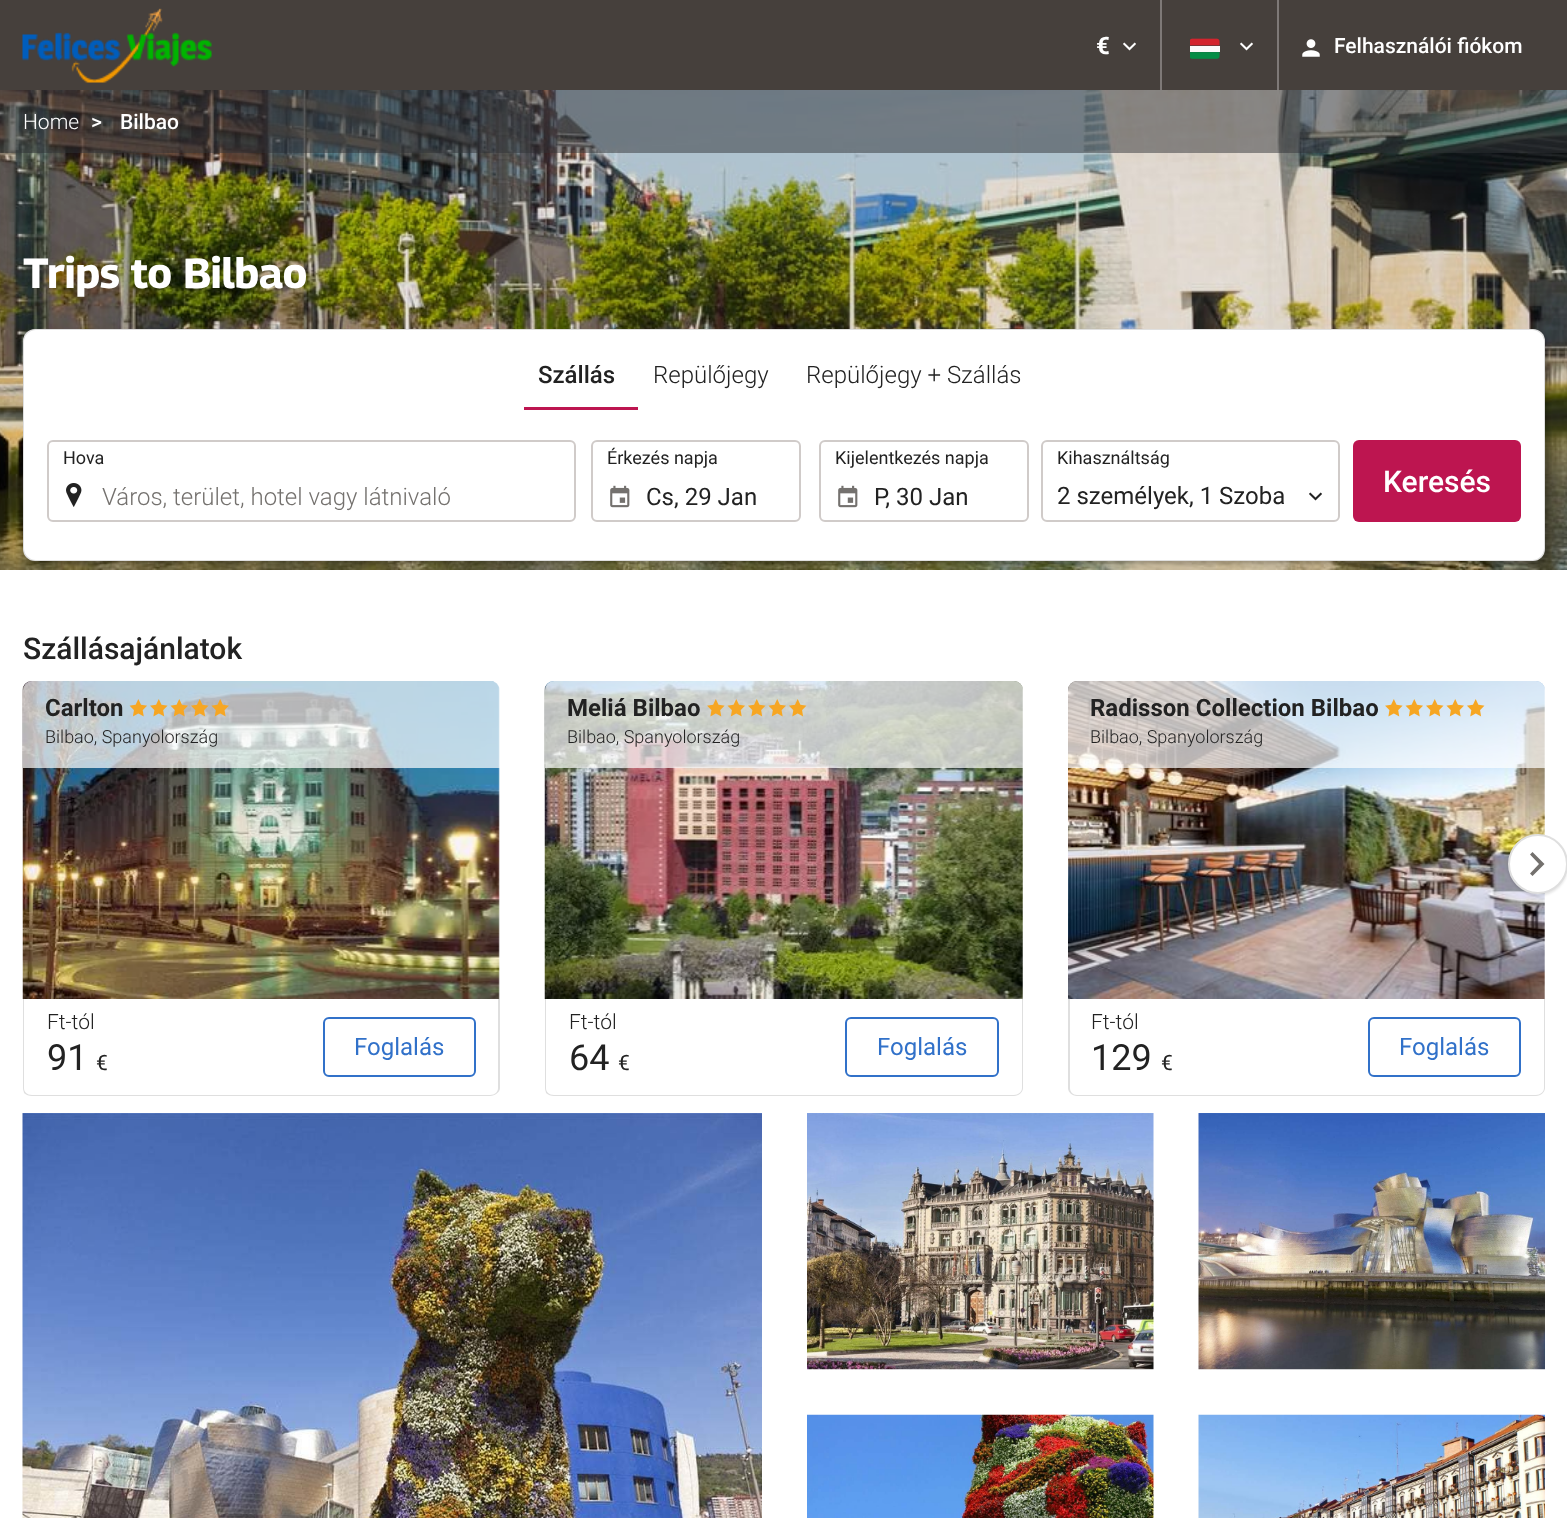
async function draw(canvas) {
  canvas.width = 1567;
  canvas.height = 1518;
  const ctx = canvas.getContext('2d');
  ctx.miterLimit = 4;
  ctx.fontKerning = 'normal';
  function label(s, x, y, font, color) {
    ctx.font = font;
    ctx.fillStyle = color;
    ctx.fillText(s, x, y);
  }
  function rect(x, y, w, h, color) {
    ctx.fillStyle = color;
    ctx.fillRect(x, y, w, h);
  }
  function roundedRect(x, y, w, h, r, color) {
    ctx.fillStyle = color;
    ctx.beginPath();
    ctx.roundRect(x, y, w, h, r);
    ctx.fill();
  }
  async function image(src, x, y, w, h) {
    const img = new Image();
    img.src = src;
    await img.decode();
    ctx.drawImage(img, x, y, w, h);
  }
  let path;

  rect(0, 0, 1567, 1518, '#fff');
  rect(0, 0, 1567, 90, '#46403c');
  await image('assets/img1.png', 22, 8, 190, 75);
  rect(1160, 0, 2, 90, '#7e7977');
  label('€', 1096, 54, 'bold 24px Roboto', '#fff');
  await image('assets/img2.png', 1123, 42, 13, 9);
  rect(1277, 0, 2, 90, '#7e7977');
  await image('assets/img3.png', 1190, 38, 30, 21);
  await image('assets/img2.png', 1240, 42, 13, 9);
  await image('assets/img4.png', 1302, 39, 18, 18);
  label('Felhasználói fiókom', 1334, 53, '500 21px Roboto', '#fff');
  await image('assets/img5.png', 0, 90, 1567, 480);
  rect(0, 90, 1567, 63, '#30323580');
  label('Home', 23, 129, '300 21px Roboto', '#fff');
  label('>', 91, 129, '500 21px Roboto', '#fff');
  label('Bilbao', 120, 129, '500 21px Roboto', '#fff');
  label('Trips to Bilbao', 23, 288, 'bold 42px Georama', '#fff');
  ctx.fillStyle = '#00000033';
  ctx.filter = 'blur(1.5px)';
  ctx.beginPath();
  ctx.roundRect(26, 332, 1522, 232, 12);
  ctx.fill();
  ctx.filter = 'none';
  roundedRect(23, 329, 1522, 232, 12, '#dfdfdf');
  ctx.fillStyle = '#fff';
  ctx.beginPath();
  ctx.roundRect(24, 330, 1520, 110, [12, 12, 0, 0]);
  ctx.fill();
  rect(524, 407, 114, 3, '#bd1550');
  label('Szállás', 538, 383, '500 24px Roboto', '#222');
  label('Repülőjegy', 653, 383, '300 24px Roboto', '#222');
  label('Repülőjegy + Szállás', 806, 383, '300 24px Roboto', '#222');
  ctx.fillStyle = '#fff';
  ctx.beginPath();
  ctx.roundRect(24, 440, 1520, 120, [0, 0, 12, 12]);
  ctx.fill();
  await image('assets/img6.png', 66, 483, 16, 24);
  ctx.beginPath();
  ctx.roundRect(48, 441, 527, 80, 5);
  ctx.strokeStyle = '#d0cbc9';
  ctx.lineWidth = 2;
  ctx.stroke();
  label('Hova', 63, 464, '18px Roboto', '#222');
  label('Város, terület, hotel vagy látnivaló', 102, 505, '300 24px Roboto', '#74716e');
  await image('assets/img7.png', 610, 485, 20, 23);
  ctx.beginPath();
  ctx.roundRect(592, 441, 208, 80, 5);
  ctx.stroke();
  label('Érkezés napja', 607, 464, '18px Roboto', '#222');
  label('Cs, 29 Jan', 646, 505, '24px Roboto', '#222');
  await image('assets/img7.png', 838, 485, 20, 23);
  ctx.beginPath();
  ctx.roundRect(820, 441, 208, 80, 5);
  ctx.stroke();
  label('Kijelentkezés napja', 835, 464, '18px Roboto', '#222');
  label('P, 30 Jan', 874, 505, '24px Roboto', '#222');
  ctx.beginPath();
  ctx.roundRect(1042, 441, 297, 80, 5);
  ctx.stroke();
  label('Kihasználtság', 1057, 464, '18px Roboto', '#222');
  label('2 személyek, 1 Szoba', 1057, 504, '24px Roboto', '#222');
  await image('assets/img8.png', 1309, 492, 13, 9);
  roundedRect(1353, 440, 168, 82, 6, '#bd1550');
  label('Keresés', 1383, 492, '500 30px Roboto', '#fff');
  label('Szállásajánlatok', 23, 659, '500 30px Roboto', '#222');
  await image('assets/img9.png', 22, 681, 478, 318);
  ctx.fillStyle = '#ffffffb3';
  ctx.beginPath();
  ctx.roundRect(23, 681, 477, 87, [9, 9, 0, 0]);
  ctx.fill();
  label('Carlton', 45, 716, 'bold 24px Roboto', '#222');
  await image('assets/img10.png', 129, 699, 100, 18);
  label('Bilbao, Spanyolország', 45, 743, '300 18px Roboto', '#222');
  ctx.fillStyle = '#dfdfdf';
  path = new Path2D('M24 999V1088C24 1092 27 1095 32 1095H490C495 1095 498 1092 498 1088V999H500V1088C500 1092 495 1096 490 1096H32C29 1096 26 1095 24 1093C24 1092 23 1090 23 1088V999Z');
  ctx.fill(path);
  label('Ft-tól', 47, 1029, '300 21px Roboto', '#222');
  label('91', 47, 1070, '36px Roboto', '#222');
  label('€', 96, 1070, '21px Roboto', '#222');
  ctx.beginPath();
  ctx.roundRect(324, 1018, 151, 58, 5);
  ctx.strokeStyle = '#3171c9';
  ctx.stroke();
  label('Foglalás', 354, 1055, '24px Roboto', '#3171c9');
  await image('assets/img11.png', 544, 681, 479, 318);
  ctx.fillStyle = '#ffffffb3';
  ctx.beginPath();
  ctx.roundRect(545, 681, 478, 87, [9, 9, 0, 0]);
  ctx.fill();
  label('Meliá Bilbao', 567, 716, 'bold 24px Roboto', '#222');
  await image('assets/img12.png', 707, 699, 100, 18);
  label('Bilbao, Spanyolország', 567, 743, '300 18px Roboto', '#222');
  ctx.fillStyle = '#dfdfdf';
  path = new Path2D('M546 999V1088C546 1092 549 1095 554 1095H1014C1018 1095 1022 1092 1022 1088V999H1023V1088C1023 1092 1019 1096 1014 1096H554C551 1096 548 1095 546 1093C546 1092 545 1090 545 1088V999Z');
  ctx.fill(path);
  label('Ft-tól', 569, 1029, '300 21px Roboto', '#222');
  label('64', 569, 1070, '36px Roboto', '#222');
  label('€', 618, 1070, '21px Roboto', '#222');
  ctx.beginPath();
  ctx.roundRect(846, 1018, 152, 58, 5);
  ctx.stroke();
  label('Foglalás', 877, 1055, '24px Roboto', '#3171c9');
  await image('assets/img13.png', 1068, 681, 477, 318);
  ctx.fillStyle = '#ffffffb3';
  ctx.beginPath();
  ctx.roundRect(1068, 681, 477, 87, [9, 9, 0, 0]);
  ctx.fill();
  label('Radisson Collection Bilbao', 1090, 716, 'bold 24px Roboto', '#222');
  await image('assets/img14.png', 1385, 699, 100, 18);
  label('Bilbao, Spanyolország', 1090, 743, '300 18px Roboto', '#222');
  ctx.fillStyle = '#dfdfdf';
  path = new Path2D('M1068 999H1545V1088C1545 1092 1541 1096 1536 1096H1077C1072 1096 1068 1092 1068 1088ZM1070 999H1544V1088C1544 1092 1540 1095 1536 1095H1077C1073 1095 1070 1092 1070 1088Z');
  ctx.fill(path, 'evenodd');
  label('Ft-tól', 1091, 1029, '300 21px Roboto', '#222');
  label('129', 1091, 1070, '36px Roboto', '#222');
  label('€', 1161, 1070, '21px Roboto', '#222');
  ctx.beginPath();
  ctx.roundRect(1369, 1018, 151, 58, 5);
  ctx.stroke();
  label('Foglalás', 1399, 1055, '24px Roboto', '#3171c9');
  ctx.fillStyle = '#0000001a';
  ctx.filter = 'blur(1px)';
  ctx.beginPath();
  ctx.roundRect(1508, 836, 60, 60, 30);
  ctx.fill();
  ctx.filter = 'none';
  ctx.fillStyle = '#fff';
  ctx.beginPath();
  ctx.arc(1538, 864, 29, 0, 2 * Math.PI);
  ctx.fill();
  ctx.strokeStyle = '#dfdfdf';
  ctx.stroke();
  ctx.fillStyle = '#74716e';
  path = new Path2D('M1530 873.5L1539 864L1530 854.5L1532.5 852L1544.5 864L1532.5 876Z');
  ctx.fill(path, 'evenodd');
  await image('assets/img15.png', 22, 1113, 740, 405);
  await image('assets/img16.png', 807, 1113, 347, 257);
  await image('assets/img17.png', 1198, 1113, 347, 257);
  await image('assets/img18.png', 807, 1414, 347, 104);
  await image('assets/img19.png', 1198, 1414, 347, 104);
}

draw(document.querySelector('canvas'));
